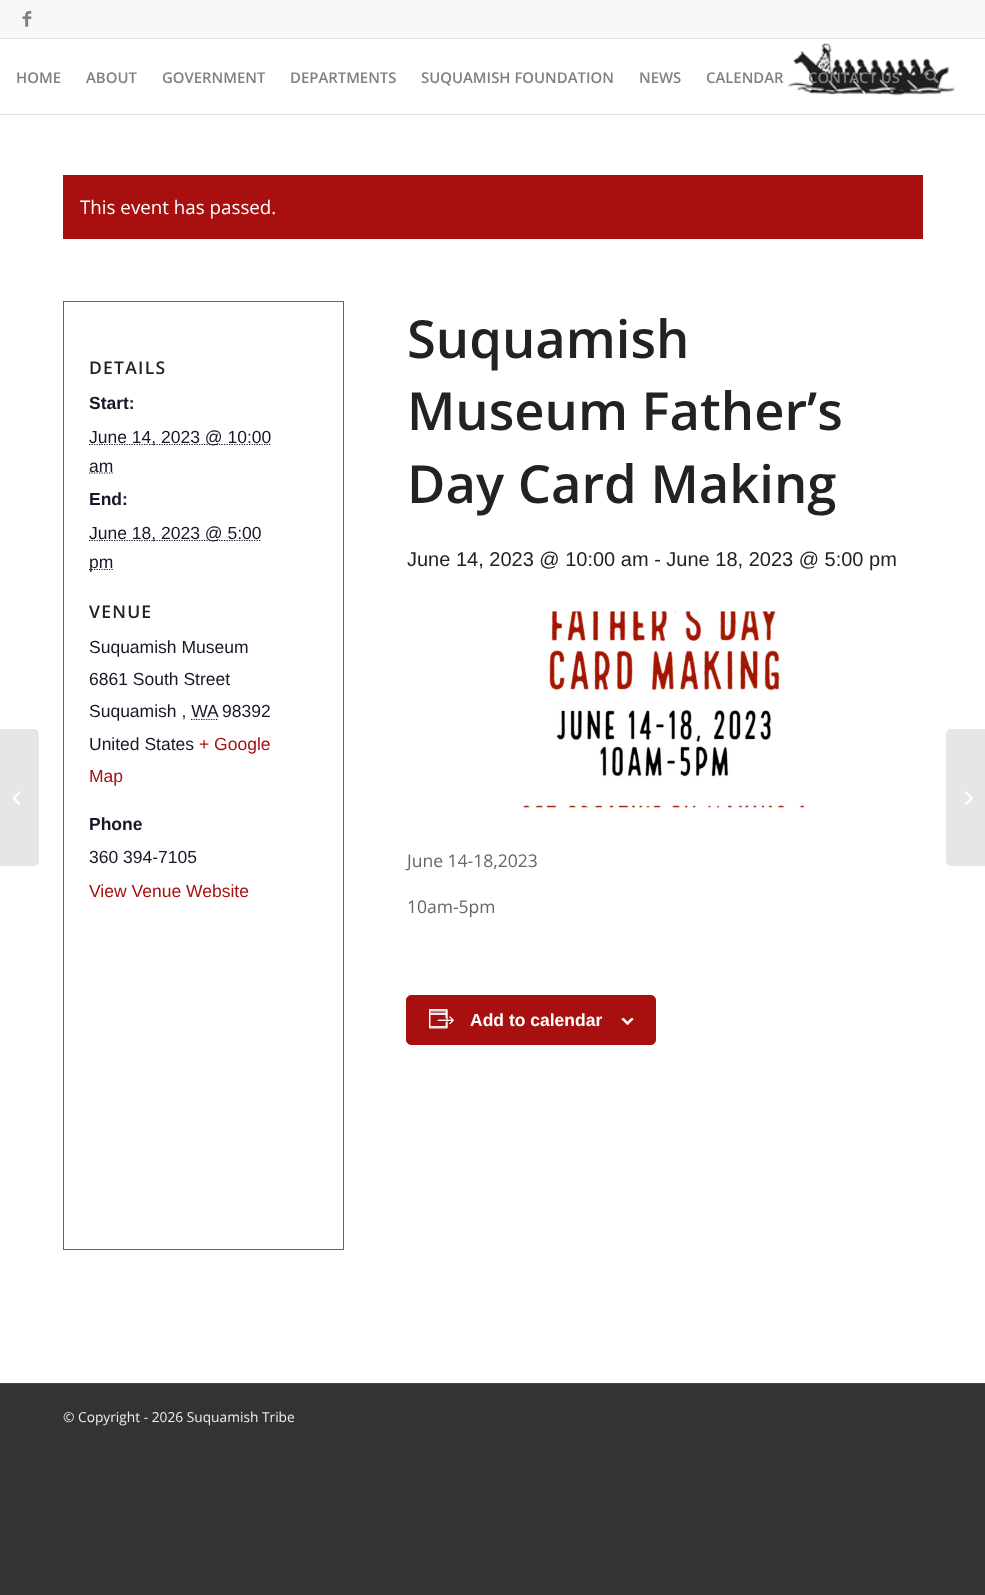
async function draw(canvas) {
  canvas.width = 985;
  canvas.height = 1595;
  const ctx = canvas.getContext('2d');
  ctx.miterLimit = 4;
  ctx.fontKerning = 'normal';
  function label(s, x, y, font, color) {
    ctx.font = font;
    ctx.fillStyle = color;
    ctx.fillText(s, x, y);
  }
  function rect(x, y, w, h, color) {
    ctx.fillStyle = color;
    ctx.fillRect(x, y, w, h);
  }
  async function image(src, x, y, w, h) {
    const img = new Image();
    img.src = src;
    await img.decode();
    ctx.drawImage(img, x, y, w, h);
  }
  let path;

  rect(0, 0, 985, 1595, '#333');
  rect(0, 39, 985, 1344, '#fff');
  rect(0, 0, 985, 38, '#f8f8f8');
  rect(0, 38, 985, 1, '#e1e1e1');
  await image('assets/img1.png', 22, 11, 10, 16);
  rect(0, 114, 985, 1, '#e1e1e1');
  await image('assets/img2.png', 787, 43, 168, 53);
  label('HOME', 16, 83, '600 14.9px Open Sans', '#808080');
  label('ABOUT', 86, 83, '600 14.9px Open Sans', '#808080');
  label('GOVERNMENT', 162, 83, '600 14.9px Open Sans', '#808080');
  label('DEPARTMENTS', 290, 83, '600 14.9px Open Sans', '#808080');
  label('SUQUAMISH FOUNDATION', 421, 83, '600 14.9px Open Sans', '#808080');
  label('NEWS', 639, 83, '600 14.9px Open Sans', '#808080');
  label('CALENDAR', 706, 83, '600 14.9px Open Sans', '#808080');
  label('CONTACT US', 808, 83, '600 14.9px Open Sans', '#808080');
  await image('assets/img3.png', 925, 69, 14, 15);
  ctx.fillStyle = '#e6e6e6';
  ctx.beginPath();
  ctx.roundRect(0, 729, 39, 137, [0, 5, 5, 0]);
  ctx.fill();
  await image('assets/img4.png', 12, 791, 9, 14);
  rect(63, 175, 860, 64, '#a81010');
  label('This event has passed.', 80, 214, '18.75px Open Sans', '#fff');
  ctx.strokeStyle = '#666';
  ctx.strokeRect(63.5, 301.5, 280, 948);
  ctx.letterSpacing = '1.25px';
  label('DETAILS', 89, 374, '600 17.5px Open Sans', '#222');
  ctx.letterSpacing = '0px';
  label('Start:', 89, 409, 'bold 17.5px Liberation Sans', '#141827');
  path = new Path2D('M89 444.5H271');
  ctx.strokeStyle = '#141827';
  ctx.lineWidth = 1.2;
  ctx.setLineDash([1.25, 1.25]);
  ctx.stroke(path);
  label('June 14, 2023 @ 10:00', 89, 443, '17.5px Liberation Sans', '#141827');
  path = new Path2D('M89 473H113');
  ctx.stroke(path);
  label('am', 89, 472, '17.5px Liberation Sans', '#141827');
  label('End:', 89, 505, 'bold 17.5px Liberation Sans', '#141827');
  path = new Path2D('M89 540.5H261');
  ctx.stroke(path);
  label('June 18, 2023 @ 5:00', 89, 539, '17.5px Liberation Sans', '#141827');
  path = new Path2D('M89 569.5H113');
  ctx.stroke(path);
  label('pm', 89, 568, '17.5px Liberation Sans', '#141827');
  ctx.letterSpacing = '1.25px';
  label('VENUE', 89, 618, '600 17.5px Open Sans', '#222');
  ctx.letterSpacing = '0px';
  label('Suquamish Museum', 89, 653, '17.5px Liberation Sans', '#141827');
  label('6861 South Street', 89, 685, '17.5px Liberation Sans', '#141827');
  label('Suquamish , WA', 89, 717, '17.5px Liberation Sans', '#141827');
  path = new Path2D('M191 719.5H217.5');
  ctx.stroke(path);
  label('98392', 222, 717, '17.5px Liberation Sans', '#141827');
  label('United States', 89, 750, '17.5px Liberation Sans', '#141827');
  label('+ Google', 199, 750, '17.5px Liberation Sans', '#a81010');
  label('Map', 89, 782, '17.5px Liberation Sans', '#a81010');
  label('Phone', 89, 830, 'bold 17.5px Liberation Sans', '#141827');
  label('360 394-7105', 89, 863, '17.5px Liberation Sans', '#141827');
  label('View Venue Website', 89, 897, '17.5px Liberation Sans', '#a81010');
  label('Suquamish', 407, 358, '600 52.5px Open Sans', '#222');
  label('Museum Father’s', 407, 430, '600 52.5px Open Sans', '#222');
  label('Day Card Making', 407, 503, '600 52.5px Open Sans', '#222');
  label('June 14, 2023 @ 10:00 am - June 18, 2023 @ 5:00 pm', 407, 566, '20px Liberation Sans', '#222');
  await image('assets/img5.png', 522, 611, 285, 197);
  label('June 14-18,2023', 407, 867, '17.5px Open Sans', '#666');
  label('10am-5pm', 407, 913, '17.5px Open Sans', '#666');
  ctx.fillStyle = '#a81010';
  ctx.beginPath();
  ctx.roundRect(406.5, 995.5, 249, 49, 4.5);
  ctx.fill();
  ctx.strokeStyle = '#a81010';
  ctx.lineWidth = 1;
  ctx.setLineDash([]);
  ctx.stroke();
  await image('assets/img6.png', 429, 1009, 25, 20);
  label('Add to calendar', 470, 1026, 'bold 17.5px Liberation Sans', '#fff');
  await image('assets/img7.png', 621, 1018, 13, 7);
  rect(0, 1383, 985, 1, '#444');
  label('© Copyright - 2026 Suquamish Tribe', 63, 1422, '13.75px Open Sans', '#eee');
  ctx.fillStyle = '#e6e6e6';
  ctx.beginPath();
  ctx.roundRect(946, 729, 39, 137, [5, 0, 0, 5]);
  ctx.fill();
  await image('assets/img8.png', 965, 791, 8, 14);
}

draw(document.querySelector('canvas'));
